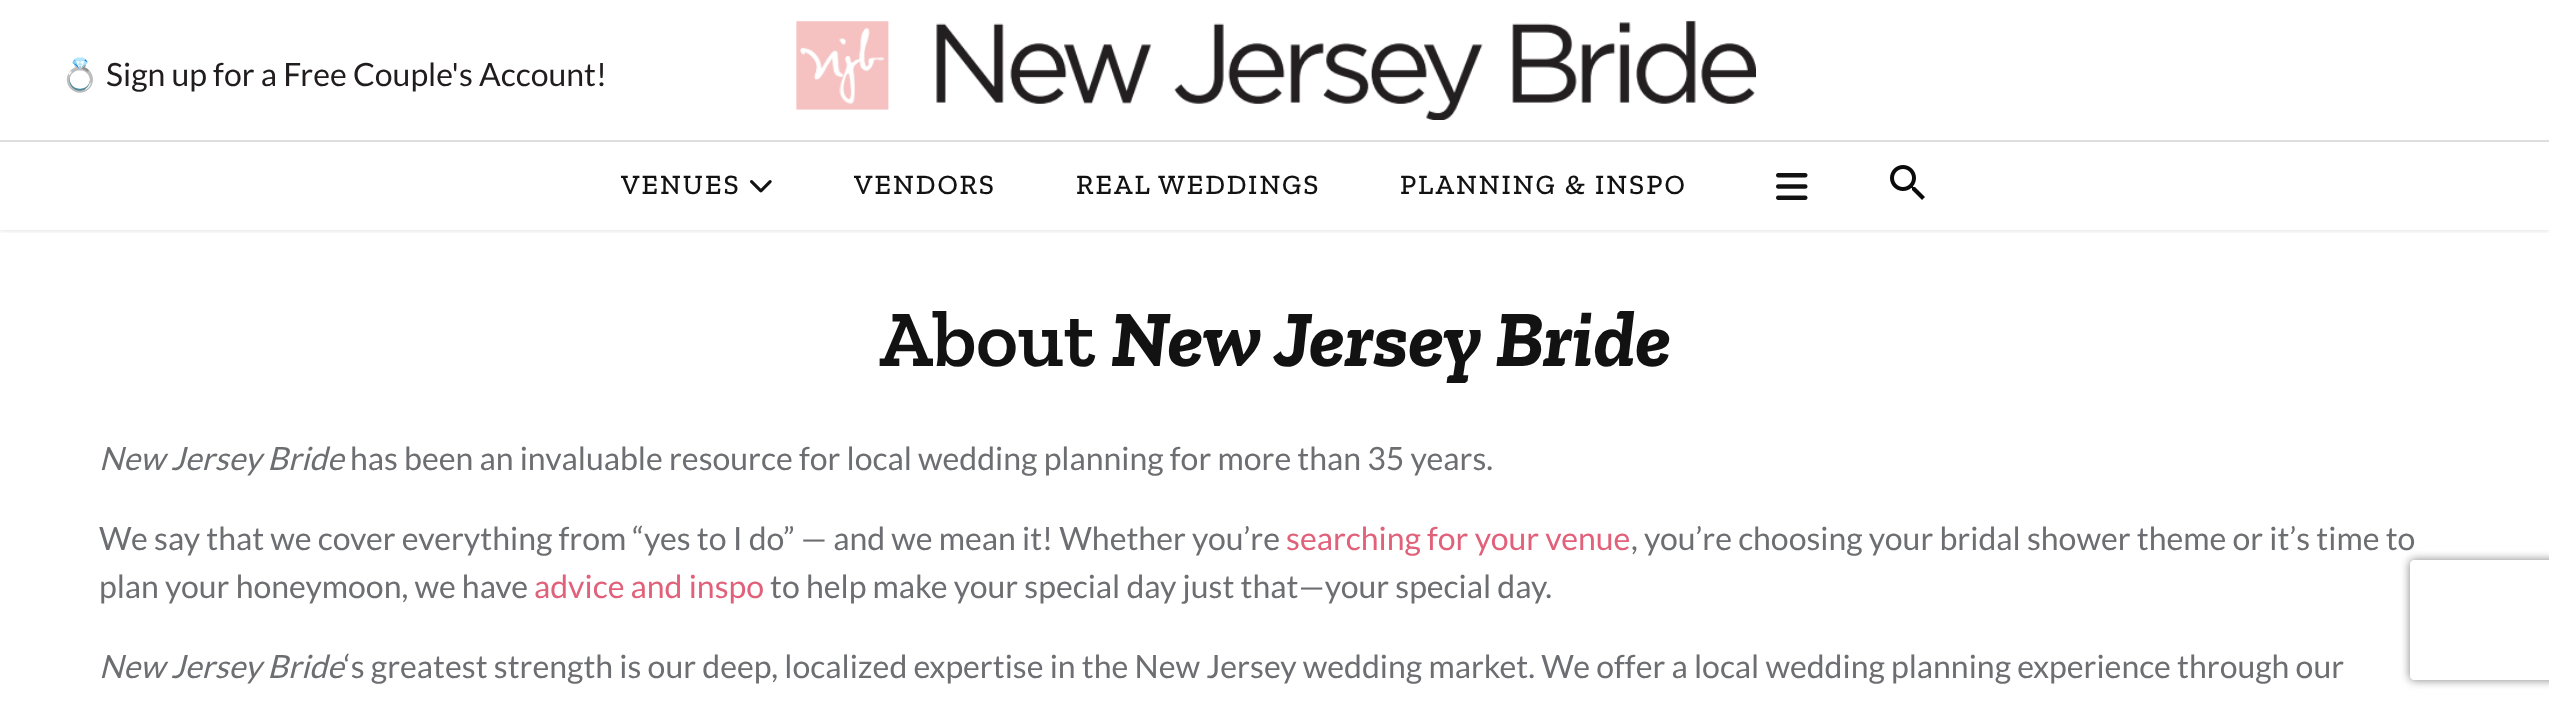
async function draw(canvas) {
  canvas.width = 2549;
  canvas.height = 708;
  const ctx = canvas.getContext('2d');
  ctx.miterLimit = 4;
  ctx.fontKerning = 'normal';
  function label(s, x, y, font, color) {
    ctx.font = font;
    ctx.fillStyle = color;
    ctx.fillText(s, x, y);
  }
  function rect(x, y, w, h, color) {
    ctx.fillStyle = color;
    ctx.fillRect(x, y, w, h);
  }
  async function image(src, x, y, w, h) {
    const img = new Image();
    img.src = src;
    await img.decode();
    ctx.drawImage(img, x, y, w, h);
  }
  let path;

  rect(0, 0, 2549, 708, '#fff');
  ctx.save();
  ctx.beginPath();
  ctx.rect(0, 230, 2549, 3);
  ctx.clip();
  ctx.fillStyle = '#00000026';
  ctx.filter = 'blur(3px)';
  ctx.beginPath();
  ctx.rect(0, 0, 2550, 230);
  ctx.fill();
  ctx.filter = 'none';
  ctx.restore();
  rect(0, 140, 2549, 2, '#dedede');
  label('💍', 60, 86, '32px Noto Color Emoji', '#211d1e');
  label('Sign up for a Free Couple\'s Account!', 106, 86, '32px Lato', '#211d1e');
  await image('assets/img1.png', 796, 20, 960, 100);
  ctx.letterSpacing = '2px';
  label('VENUES', 621, 194, '500 28px Zilla Slab', '#121212');
  await image('assets/img2.png', 750, 180, 22, 13);
  label('VENDORS', 854, 194, '500 28px Zilla Slab', '#121212');
  label('REAL WEDDINGS', 1076, 194, '500 28px Zilla Slab', '#121212');
  label('PLANNING & INSPO', 1400, 194, '500 28px Zilla Slab', '#121212');
  await image('assets/img3.png', 1776, 173, 32, 27);
  await image('assets/img4.png', 1890, 165, 35, 35);
  ctx.letterSpacing = '0px';
  label('About', 879, 366, '600 80px Zilla Slab', '#121212');
  label('New Jersey Bride', 1111, 366, 'italic bold 80px Zilla Slab', '#121212');
  label('New Jersey Bride', 99, 470, 'italic 32px Lato', '#6d6e71');
  label('has been an invaluable resource for local wedding planning for more than 35 years.', 350, 470, '32px Lato', '#6d6e71');
  label('We say that we cover everything from “yes to I do” — and we mean it! Whether you’re', 99, 550, '32px Lato', '#6d6e71');
  label('searching for your venue', 1286, 550, '32px Lato', '#e1617a');
  label(', you’re choosing your bridal shower theme or it’s time to', 1631, 550, '32px Lato', '#6d6e71');
  label('plan your honeymoon, we have', 99, 598, '32px Lato', '#6d6e71');
  label('advice and inspo', 534, 598, '32px Lato', '#e1617a');
  label('to help make your special day just that—your special day.', 770, 598, '32px Lato', '#6d6e71');
  label('New Jersey Bride', 99, 678, 'italic 32px Lato', '#6d6e71');
  label('‘s greatest strength is our deep, localized expertise in the New Jersey wedding market. We offer a local wedding planning experience through our', 344, 678, '32px Lato', '#6d6e71');
  ctx.save();
  path = new Path2D('M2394 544H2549V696H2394ZM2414 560H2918C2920 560 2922 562 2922 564V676C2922 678 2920 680 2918 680H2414C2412 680 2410 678 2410 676V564C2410 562 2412 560 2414 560Z');
  ctx.clip(path, 'evenodd');
  ctx.fillStyle = '#808080';
  ctx.filter = 'blur(5px)';
  ctx.beginPath();
  ctx.roundRect(2410, 560, 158, 120, 4);
  ctx.fill();
  ctx.filter = 'none';
  ctx.restore();
}

draw(document.querySelector('canvas'));
